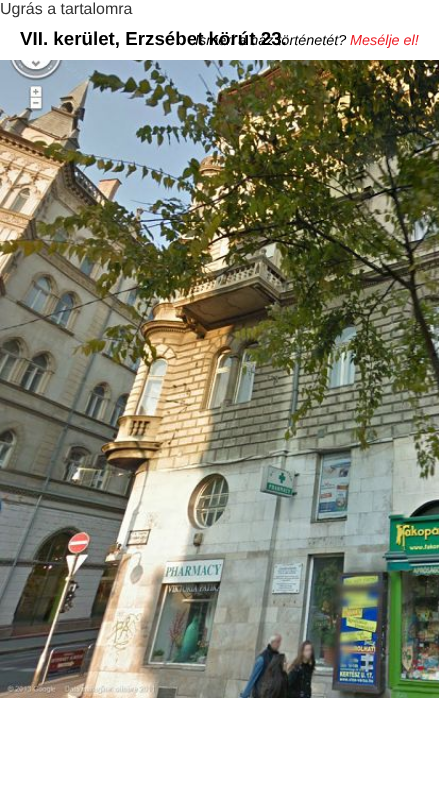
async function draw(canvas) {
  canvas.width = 439;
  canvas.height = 794;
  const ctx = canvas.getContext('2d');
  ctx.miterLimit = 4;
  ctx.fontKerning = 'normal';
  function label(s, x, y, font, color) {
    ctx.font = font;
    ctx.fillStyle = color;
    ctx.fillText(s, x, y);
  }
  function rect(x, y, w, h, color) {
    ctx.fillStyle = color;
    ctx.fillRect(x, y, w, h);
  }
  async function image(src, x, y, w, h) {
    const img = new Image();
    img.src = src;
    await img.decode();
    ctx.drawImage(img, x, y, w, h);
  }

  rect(0, 0, 439, 794, '#fff');
  label('Ugrás a tartalomra', 0, 14, '16px Liberation Sans', '#333');
  await image('assets/img1.png', 0, 60, 439, 638);
  label('VII. kerület, Erzsébet körút 23.', 20, 45, 'bold 18.75px Liberation Sans', '#000');
  label('Ismeri a ház történetét?', 195, 45, 'italic 14.4px Liberation Sans', '#000');
  label('Mesélje el!', 350, 45, 'italic 14.4px Liberation Sans', '#ed1c24');
}

draw(document.querySelector('canvas'));
